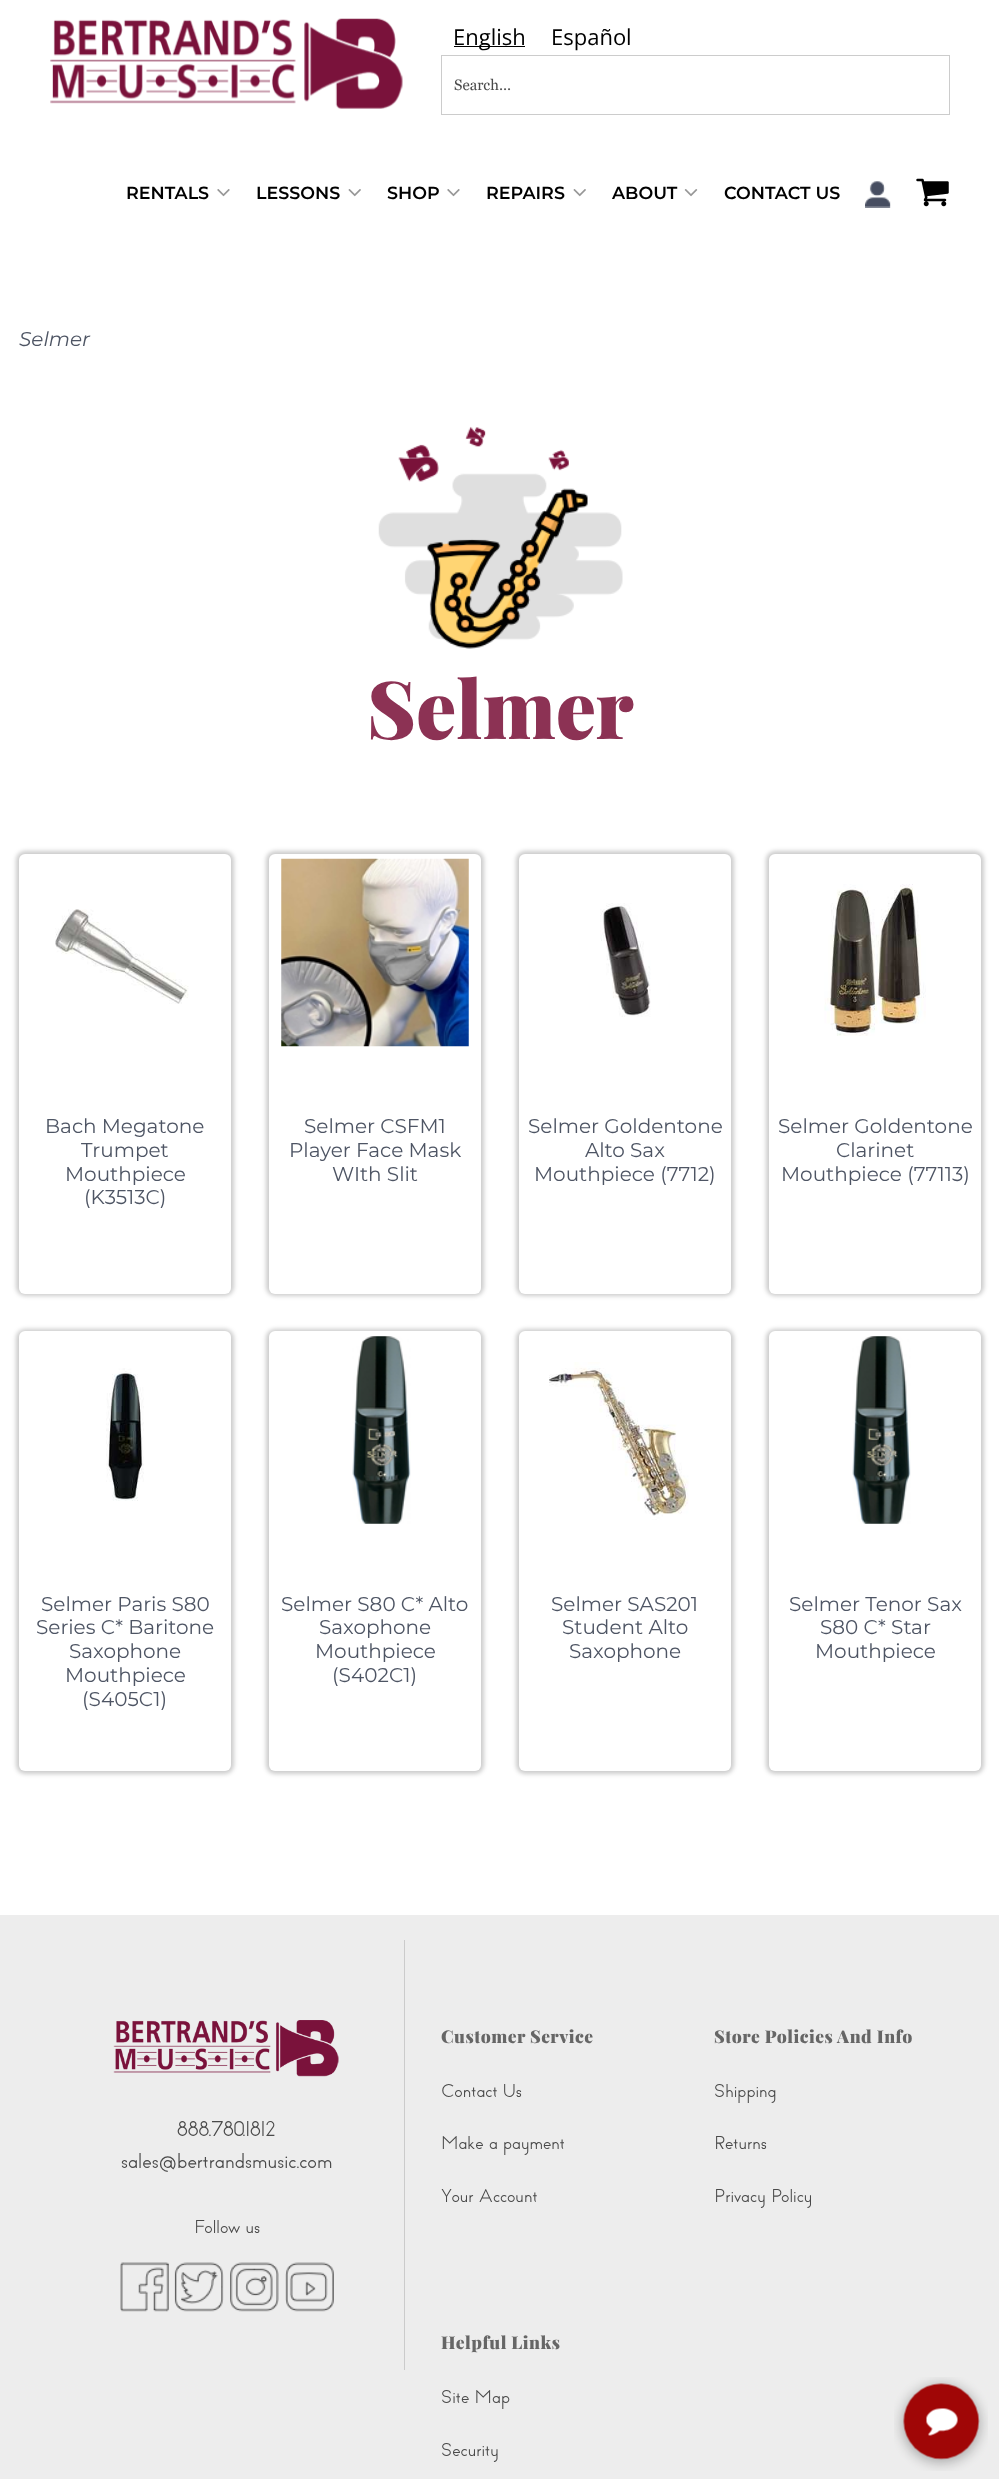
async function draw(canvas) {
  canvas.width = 999;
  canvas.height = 2479;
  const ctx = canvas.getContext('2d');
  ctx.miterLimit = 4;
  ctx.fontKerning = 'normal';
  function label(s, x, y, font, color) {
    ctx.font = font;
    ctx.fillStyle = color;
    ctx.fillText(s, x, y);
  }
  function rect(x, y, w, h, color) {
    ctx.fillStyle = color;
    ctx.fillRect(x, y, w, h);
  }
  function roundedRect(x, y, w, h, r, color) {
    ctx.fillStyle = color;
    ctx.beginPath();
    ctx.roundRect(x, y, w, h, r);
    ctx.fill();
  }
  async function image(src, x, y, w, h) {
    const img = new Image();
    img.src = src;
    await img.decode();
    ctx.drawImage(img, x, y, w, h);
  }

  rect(0, 0, 999, 2479, '#fff');
  await image('assets/img1.png', 50, 18, 353, 91);
  rect(454, 46, 71, 1, '#000');
  label('English', 453, 45, '22px Open Sans', '#000');
  label('Español', 551, 45, '22px Open Sans', '#000');
  ctx.strokeStyle = '#ccc';
  ctx.strokeRect(441.5, 55.5, 508, 59);
  label('Search...', 454, 90, '15px Georgia', '#4a4a4a');
  label('RENTALS', 126, 199, '600 17.5px Montserrat', '#000');
  await image('assets/img2.png', 217, 189, 13, 8);
  label('LESSONS', 256, 199, '600 17.5px Montserrat', '#000');
  await image('assets/img3.png', 348, 189, 13, 8);
  label('SHOP', 387, 199, '600 17.5px Montserrat', '#000');
  await image('assets/img2.png', 447, 189, 13, 8);
  label('REPAIRS', 486, 199, '600 17.5px Montserrat', '#000');
  await image('assets/img3.png', 573, 189, 13, 8);
  label('ABOUT', 612, 199, '600 17.5px Montserrat', '#000');
  await image('assets/img4.png', 684, 189, 14, 8);
  label('CONTACT US', 724, 199, '600 17.5px Montserrat', '#000');
  await image('assets/img5.png', 865, 181, 26, 27);
  await image('assets/img6.png', 916, 178, 33, 29);
  label('Selmer', 19, 346, 'italic 20px Montserrat', '#4e5564');
  await image('assets/img7.png', 378, 426, 245, 223);
  label('Selmer', 367, 739, '900 80px Playfair Display', '#8c3254');
  ctx.fillStyle = '#00000033';
  ctx.filter = 'blur(2px)';
  ctx.beginPath();
  ctx.roundRect(16, 851, 218, 445, 9);
  ctx.fill();
  ctx.filter = 'none';
  roundedRect(19, 854, 212, 440, 6, '#fff');
  await image('assets/img8.png', 55, 909, 134, 95);
  label('Bach Megatone', 45, 1133, '20px Montserrat', '#4e5564');
  label('Trumpet', 81, 1157, '20px Montserrat', '#4e5564');
  label('Mouthpiece', 65, 1181, '20px Montserrat', '#4e5564');
  label('(K3513C)', 84, 1204, '20px Montserrat', '#4e5564');
  ctx.fillStyle = '#00000033';
  ctx.filter = 'blur(2px)';
  ctx.beginPath();
  ctx.roundRect(266, 851, 218, 445, 9);
  ctx.fill();
  ctx.filter = 'none';
  roundedRect(269, 854, 212, 440, 6, '#fff');
  await image('assets/img9.png', 281, 858, 188, 189);
  label('Selmer CSFM1', 304, 1133, '20px Montserrat', '#4e5564');
  label('Player Face Mask', 289, 1157, '20px Montserrat', '#4e5564');
  label('WIth Slit', 332, 1181, '20px Montserrat', '#4e5564');
  ctx.fillStyle = '#00000033';
  ctx.filter = 'blur(2px)';
  ctx.beginPath();
  ctx.roundRect(516, 851, 218, 445, 9);
  ctx.fill();
  ctx.filter = 'none';
  roundedRect(519, 854, 212, 440, 6, '#fff');
  await image('assets/img10.png', 600, 903, 51, 114);
  label('Selmer Goldentone', 528, 1133, '20px Montserrat', '#4e5564');
  label('Alto Sax', 585, 1157, '20px Montserrat', '#4e5564');
  label('Mouthpiece (7712)', 534, 1181, '20px Montserrat', '#4e5564');
  ctx.fillStyle = '#00000033';
  ctx.filter = 'blur(2px)';
  ctx.beginPath();
  ctx.roundRect(766, 851, 218, 445, 9);
  ctx.fill();
  ctx.filter = 'none';
  roundedRect(769, 854, 212, 440, 6, '#fff');
  await image('assets/img11.png', 824, 884, 102, 152);
  label('Selmer Goldentone', 778, 1133, '20px Montserrat', '#4e5564');
  label('Clarinet', 836, 1157, '20px Montserrat', '#4e5564');
  label('Mouthpiece (77113)', 781, 1181, '20px Montserrat', '#4e5564');
  ctx.fillStyle = '#00000033';
  ctx.filter = 'blur(2px)';
  ctx.beginPath();
  ctx.roundRect(16, 1329, 218, 445, 9);
  ctx.fill();
  ctx.filter = 'none';
  roundedRect(19, 1331, 212, 440, 6, '#fff');
  await image('assets/img12.png', 106, 1368, 38, 133);
  label('Selmer Paris S80', 41, 1611, '20px Montserrat', '#4e5564');
  label('Series C* Baritone', 36, 1634, '20px Montserrat', '#4e5564');
  label('Saxophone', 69, 1658, '20px Montserrat', '#4e5564');
  label('Mouthpiece', 65, 1682, '20px Montserrat', '#4e5564');
  label('(S405C1)', 82, 1706, '20px Montserrat', '#4e5564');
  ctx.fillStyle = '#00000033';
  ctx.filter = 'blur(2px)';
  ctx.beginPath();
  ctx.roundRect(266, 1329, 218, 445, 9);
  ctx.fill();
  ctx.filter = 'none';
  roundedRect(269, 1331, 212, 440, 6, '#fff');
  await image('assets/img13.png', 352, 1336, 59, 188);
  label('Selmer S80 C* Alto', 281, 1611, '20px Montserrat', '#4e5564');
  label('Saxophone', 319, 1634, '20px Montserrat', '#4e5564');
  label('Mouthpiece', 315, 1658, '20px Montserrat', '#4e5564');
  label('(S402C1)', 332, 1682, '20px Montserrat', '#4e5564');
  ctx.fillStyle = '#00000033';
  ctx.filter = 'blur(2px)';
  ctx.beginPath();
  ctx.roundRect(516, 1329, 218, 445, 9);
  ctx.fill();
  ctx.filter = 'none';
  roundedRect(519, 1331, 212, 440, 6, '#fff');
  await image('assets/img14.png', 549, 1362, 140, 158);
  label('Selmer SAS201', 551, 1611, '20px Montserrat', '#4e5564');
  label('Student Alto', 562, 1634, '20px Montserrat', '#4e5564');
  label('Saxophone', 569, 1658, '20px Montserrat', '#4e5564');
  ctx.fillStyle = '#00000033';
  ctx.filter = 'blur(2px)';
  ctx.beginPath();
  ctx.roundRect(766, 1329, 218, 445, 9);
  ctx.fill();
  ctx.filter = 'none';
  roundedRect(769, 1331, 212, 440, 6, '#fff');
  await image('assets/img15.png', 852, 1336, 59, 188);
  label('Selmer Tenor Sax', 789, 1611, '20px Montserrat', '#4e5564');
  label('S80 C* Star', 820, 1634, '20px Montserrat', '#4e5564');
  label('Mouthpiece', 815, 1658, '20px Montserrat', '#4e5564');
  rect(0, 1915, 999, 564, '#ededed');
  await image('assets/img16.png', 113, 2020, 226, 57);
  rect(404, 1940, 1, 430, '#cbcbcb');
  label('888.780.1812', 177, 2136, '20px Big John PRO', '#4a4a4a');
  label('sales@bertrandsmusic.com', 121, 2168, '20px Big John PRO', '#4a4a4a');
  label('Follow us', 194, 2233, '17.5px Big John PRO', '#4a4a4a');
  await image('assets/img17.png', 120, 2262, 49, 50);
  await image('assets/img18.png', 174, 2262, 50, 50);
  await image('assets/img19.png', 230, 2262, 49, 50);
  await image('assets/img20.png', 285, 2262, 49, 50);
  ctx.letterSpacing = '0.5px';
  label('Customer Service', 441, 2043, '900 17.5px Playfair Display', '#666');
  ctx.letterSpacing = '0px';
  label('Contact Us', 441, 2097, '17.5px Big John PRO', '#4a4a4a');
  label('Make a payment', 441, 2149, '17.5px Big John PRO', '#4a4a4a');
  label('Your Account', 441, 2202, '17.5px Big John PRO', '#4a4a4a');
  ctx.letterSpacing = '0.5px';
  label('Store Policies And Info', 714, 2043, '900 17.5px Playfair Display', '#666');
  ctx.letterSpacing = '0px';
  label('Shipping', 714, 2097, '17.5px Big John PRO', '#4a4a4a');
  label('Returns', 714, 2149, '17.5px Big John PRO', '#4a4a4a');
  label('Privacy Policy', 714, 2202, '17.5px Big John PRO', '#4a4a4a');
  ctx.letterSpacing = '0.5px';
  label('Helpful Links', 441, 2349, '900 17.5px Playfair Display', '#666');
  ctx.letterSpacing = '0px';
  label('Site Map', 441, 2403, '17.5px Big John PRO', '#4a4a4a');
  label('Security', 441, 2456, '17.5px Big John PRO', '#4a4a4a');
  await image('assets/img21.png', 894, 2377, 94, 94);
}

draw(document.querySelector('canvas'));
